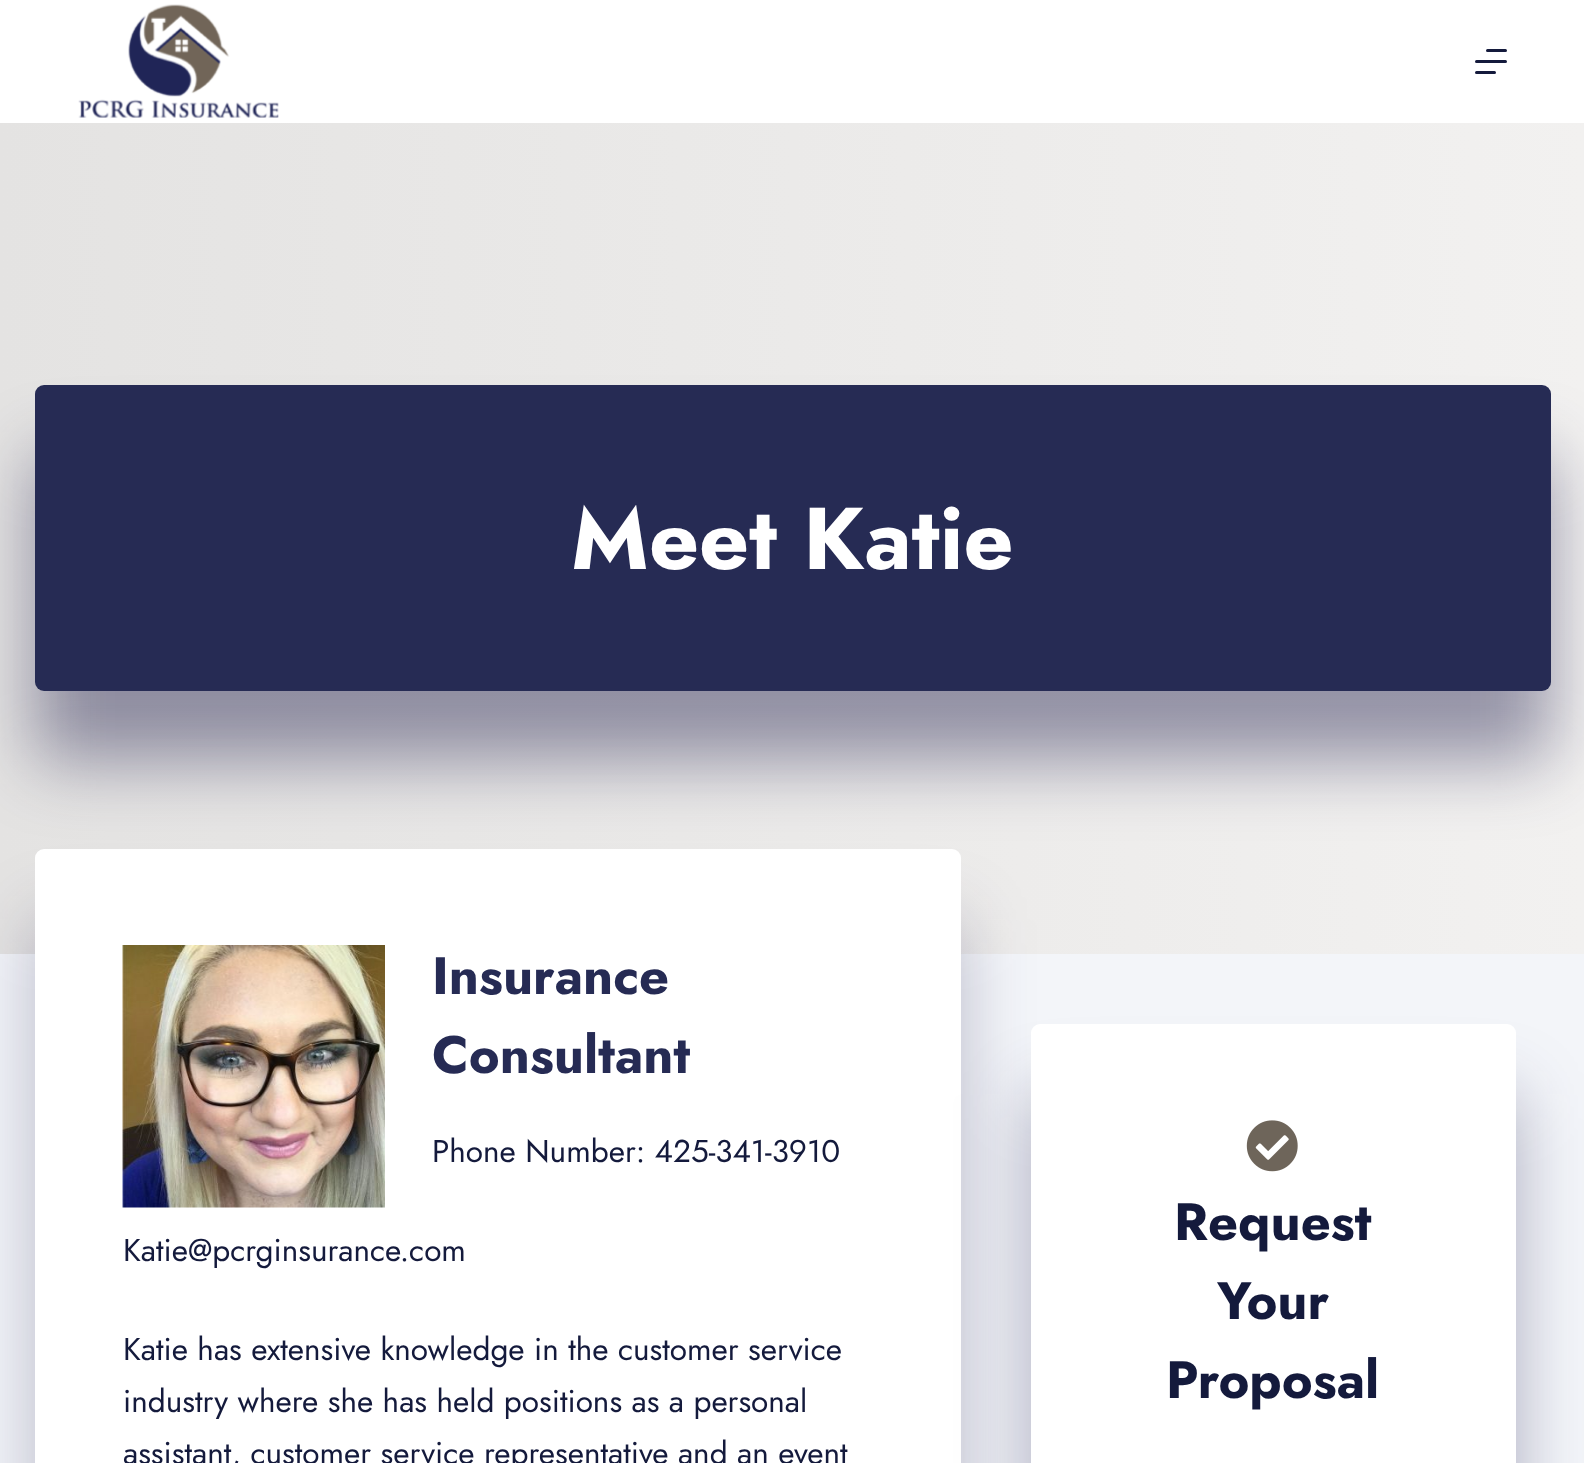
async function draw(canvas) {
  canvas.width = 1584;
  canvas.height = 1463;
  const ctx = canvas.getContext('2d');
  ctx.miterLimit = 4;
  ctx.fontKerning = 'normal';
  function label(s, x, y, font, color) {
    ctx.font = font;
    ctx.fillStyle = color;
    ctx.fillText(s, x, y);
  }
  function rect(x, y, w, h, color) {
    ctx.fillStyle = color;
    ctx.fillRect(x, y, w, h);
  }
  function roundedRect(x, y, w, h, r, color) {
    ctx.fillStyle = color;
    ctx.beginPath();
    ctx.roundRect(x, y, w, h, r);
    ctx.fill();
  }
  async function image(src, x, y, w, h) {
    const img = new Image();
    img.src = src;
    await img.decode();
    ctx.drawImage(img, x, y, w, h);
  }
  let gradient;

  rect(0, 0, 1584, 1463, '#fff');
  await image('assets/img1.png', 78, 4, 201, 114);
  roundedRect(1486, 49, 21, 3, 1.5, '#141a3c');
  roundedRect(1475, 60, 32, 3, 1.5, '#141a3c');
  roundedRect(1475, 71, 21, 3, 1.5, '#141a3c');
  gradient = ctx.createLinearGradient(0, 538, 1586, 538);
  gradient.addColorStop(0, '#e4e3e2');
  gradient.addColorStop(1, '#f2f1f0');
  ctx.fillStyle = gradient;
  ctx.fillRect(0, 123, 1584, 831);
  rect(0, 954, 1584, 509, '#f3f5f9');
  ctx.fillStyle = '#1c194945';
  ctx.filter = 'blur(35px)';
  ctx.beginPath();
  ctx.roundRect(35, 919, 926, 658, 9);
  ctx.fill();
  ctx.filter = 'none';
  roundedRect(35, 849, 926, 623, 9, '#fff');
  ctx.fillStyle = '#1c19496e';
  ctx.filter = 'blur(35px)';
  ctx.beginPath();
  ctx.roundRect(35, 455, 1516, 306, 9);
  ctx.fill();
  ctx.filter = 'none';
  roundedRect(35, 385, 1516, 306, 9, '#262b54');
  label('Meet Katie', 571, 569, 'bold 87.5px Jost', '#fff');
  await image('assets/img2.png', 122, 945, 263, 263);
  label('Insurance', 432, 994, 'bold 52.5px Jost', '#262b54');
  label('Consultant', 432, 1073, 'bold 52.5px Jost', '#262b54');
  label('Phone Number: 425-341-3910', 432, 1162, '31.5px Jost', '#141a3c');
  label('Katie@pcrginsurance.com', 123, 1261, '31.5px Jost', '#141a3c');
  label('Katie has extensive knowledge in the customer service', 123, 1360, '31.5px Jost', '#141a3c');
  label('industry where she has held positions as a personal', 123, 1412, '31.5px Jost', '#141a3c');
  label('assistant, customer service representative and an event', 123, 1464, '31.5px Jost', '#141a3c');
  ctx.fillStyle = '#1c194954';
  ctx.filter = 'blur(35px)';
  ctx.beginPath();
  ctx.roundRect(1031, 1094, 485, 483, 9);
  ctx.fill();
  ctx.filter = 'none';
  roundedRect(1031, 1024, 485, 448, 9, '#fff');
  await image('assets/img3.png', 1246, 1120, 52, 52);
  label('Request', 1174, 1240, 'bold 52.5px Jost', '#141a3c');
  label('Your', 1217, 1319, 'bold 52.5px Jost', '#141a3c');
  label('Proposal', 1166, 1398, 'bold 52.5px Jost', '#141a3c');
}

draw(document.querySelector('canvas'));
